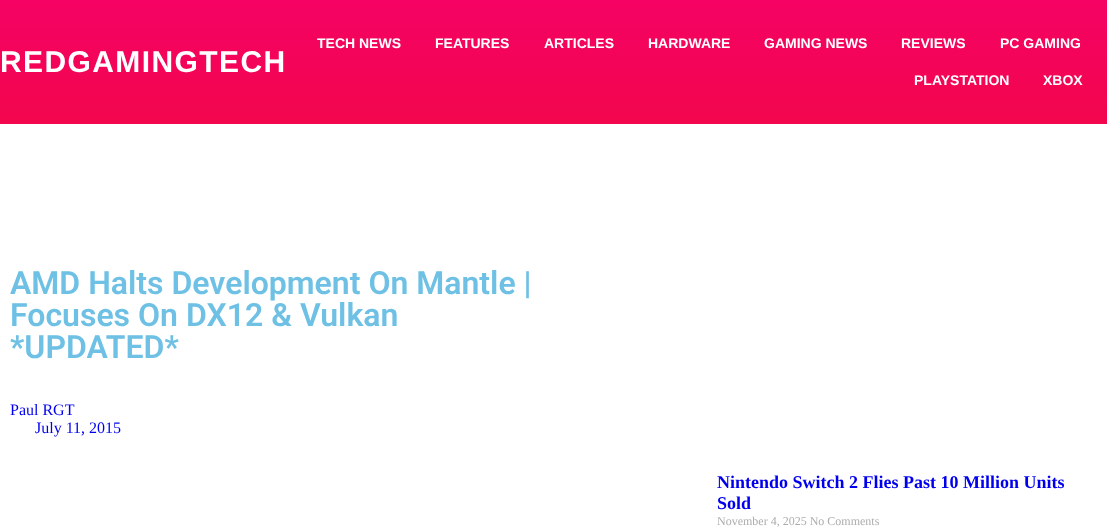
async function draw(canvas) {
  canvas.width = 1107;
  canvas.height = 531;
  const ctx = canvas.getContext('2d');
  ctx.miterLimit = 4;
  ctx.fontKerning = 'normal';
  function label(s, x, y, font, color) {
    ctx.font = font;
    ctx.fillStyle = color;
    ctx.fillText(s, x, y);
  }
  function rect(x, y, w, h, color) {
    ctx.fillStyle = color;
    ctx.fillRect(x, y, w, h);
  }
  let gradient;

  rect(0, 0, 1107, 531, '#fff');
  gradient = ctx.createLinearGradient(554, 0, 554, 124);
  gradient.addColorStop(0, '#f50264');
  gradient.addColorStop(1, '#f2064d');
  ctx.fillStyle = gradient;
  ctx.fillRect(0, 0, 1107, 124);
  ctx.letterSpacing = '1.4px';
  label('REDGAMINGTECH', 0, 72, 'bold 30px Liberation Sans', '#fff');
  ctx.letterSpacing = '0px';
  label('TECH NEWS', 317, 48, 'bold 14px Liberation Sans', '#fff');
  label('FEATURES', 435, 48, 'bold 14px Liberation Sans', '#fff');
  label('ARTICLES', 544, 48, 'bold 14px Liberation Sans', '#fff');
  label('HARDWARE', 648, 48, 'bold 14px Liberation Sans', '#fff');
  label('GAMING NEWS', 764, 48, 'bold 14px Liberation Sans', '#fff');
  label('REVIEWS', 901, 48, 'bold 14px Liberation Sans', '#fff');
  label('PC GAMING', 1000, 48, 'bold 14px Liberation Sans', '#fff');
  label('PLAYSTATION', 914, 85, 'bold 14px Liberation Sans', '#fff');
  label('XBOX', 1043, 85, 'bold 14px Liberation Sans', '#fff');
  label('AMD Halts Development On Mantle |', 10, 294, '600 32px Roboto', '#6ec1e4');
  label('Focuses On DX12 & Vulkan', 10, 326, '600 32px Roboto', '#6ec1e4');
  label('*UPDATED*', 10, 358, '600 32px Roboto', '#6ec1e4');
  label('Paul RGT', 10, 415, '16px Liberation Serif', '#00e');
  label('July 11, 2015', 35, 433, '16px Liberation Serif', '#00e');
  label('Nintendo Switch 2 Flies Past 10 Million Units', 717, 488, 'bold 18px Liberation Serif', '#00e');
  label('Sold', 717, 509, 'bold 18px Liberation Serif', '#00e');
  label('November 4, 2025 No Comments', 717, 525, '12px Liberation Serif', '#adadad');
}

draw(document.querySelector('canvas'));
